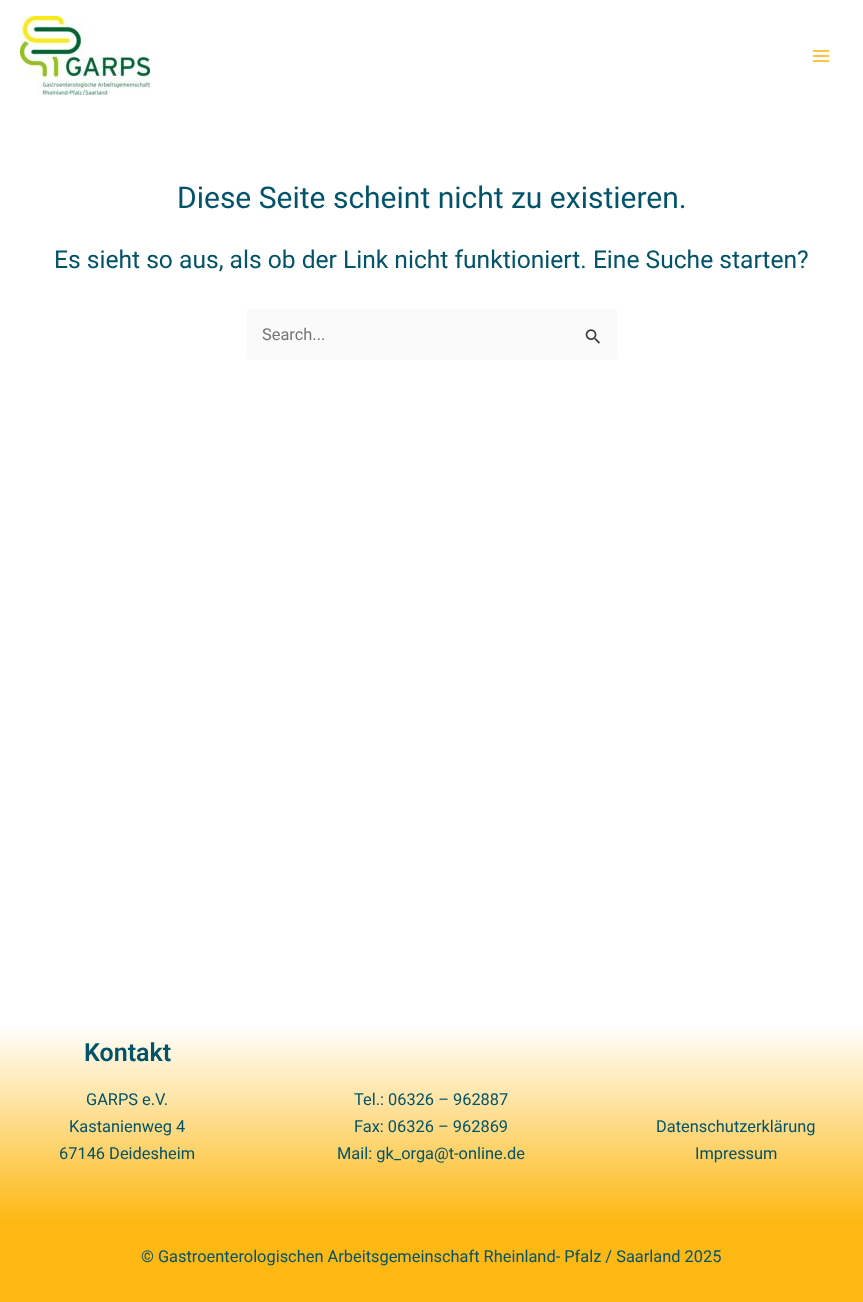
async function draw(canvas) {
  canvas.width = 863;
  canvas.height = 1302;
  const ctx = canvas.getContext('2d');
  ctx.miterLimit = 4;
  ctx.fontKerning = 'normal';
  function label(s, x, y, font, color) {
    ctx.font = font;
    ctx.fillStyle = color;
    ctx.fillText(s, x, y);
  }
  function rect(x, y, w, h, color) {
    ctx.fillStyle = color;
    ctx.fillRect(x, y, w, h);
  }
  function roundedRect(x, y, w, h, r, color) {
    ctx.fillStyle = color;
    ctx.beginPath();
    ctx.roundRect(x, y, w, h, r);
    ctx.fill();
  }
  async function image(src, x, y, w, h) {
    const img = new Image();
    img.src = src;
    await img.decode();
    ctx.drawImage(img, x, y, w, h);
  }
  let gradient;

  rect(0, 0, 863, 1302, '#fff');
  await image('assets/img1.png', 20, 16, 130, 79);
  await image('assets/img2.png', 812, 50, 18, 12);
  label('Diese Seite scheint nicht zu existieren.', 177, 208, '30px Roboto', '#005369');
  label('Es sieht so aus, als ob der Link nicht funktioniert. Eine Suche starten?', 54, 268, '24.6px Roboto', '#005369');
  roundedRect(247, 309, 370, 51, 2, '#fafafa');
  label('Search...', 262, 340, '16.4px Roboto', '#757575');
  await image('assets/img3.png', 585, 329, 15, 15);
  gradient = ctx.createLinearGradient(432, 1222, 432, 992);
  gradient.addColorStop(0, '#fdb813');
  gradient.addColorStop(0.86, '#fff');
  ctx.fillStyle = gradient;
  ctx.fillRect(0, 1026, 863, 196);
  label('Kontakt', 84, 1061, '600 25px Roboto', '#005369');
  label('GARPS e.V.', 86, 1105, '16.4px Roboto', '#005369');
  label('Kastanienweg 4', 69, 1132, '16.4px Roboto', '#005369');
  label('67146 Deidesheim', 59, 1159, '16.4px Roboto', '#005369');
  label('Tel.: 06326 – 962887', 354, 1105, '16.4px Roboto', '#005369');
  label('Fax: 06326 – 962869', 354, 1132, '16.4px Roboto', '#005369');
  label('Mail: gk_orga@t-online.de', 337, 1159, '16.4px Roboto', '#005369');
  label('Datenschutzerklärung', 656, 1132, '16.4px Roboto', '#005369');
  label('Impressum', 695, 1159, '16.4px Roboto', '#005369');
  rect(0, 1222, 863, 80, '#fdb813');
  label('© Gastroenterologischen Arbeitsgemeinschaft Rheinland- Pfalz / Saarland 2025', 141, 1262, '16.4px Roboto', '#005369');
}

draw(document.querySelector('canvas'));
